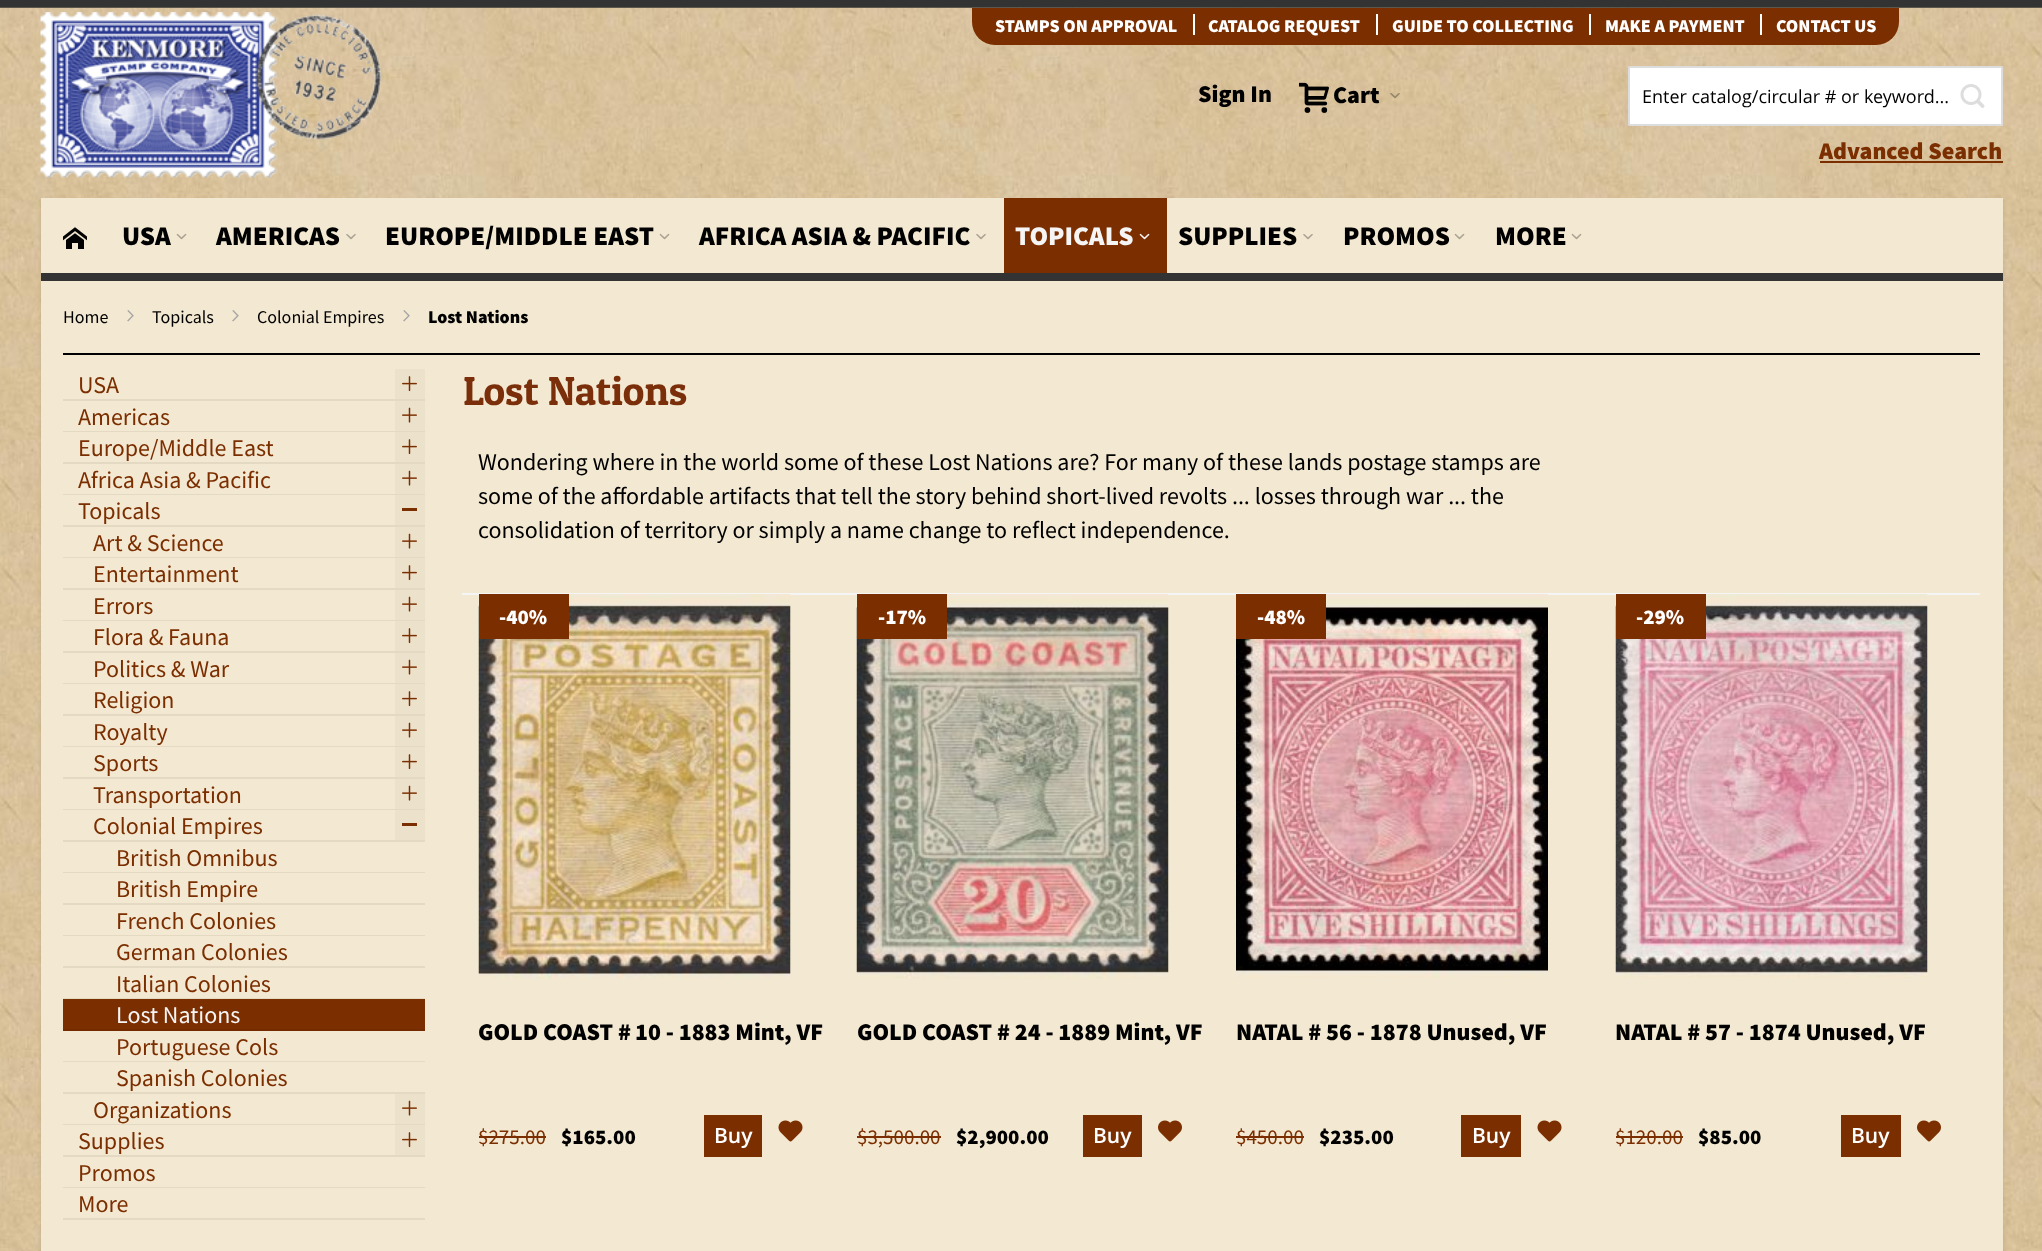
async function draw(canvas) {
  canvas.width = 2042;
  canvas.height = 1251;
  const ctx = canvas.getContext('2d');
  ctx.miterLimit = 4;
  ctx.fontKerning = 'normal';
  function label(s, x, y, font, color) {
    ctx.font = font;
    ctx.fillStyle = color;
    ctx.fillText(s, x, y);
  }
  function rect(x, y, w, h, color) {
    ctx.fillStyle = color;
    ctx.fillRect(x, y, w, h);
  }
  async function image(src, x, y, w, h) {
    const img = new Image();
    img.src = src;
    await img.decode();
    ctx.drawImage(img, x, y, w, h);
  }

  rect(0, 0, 2042, 1251, '#fff');
  await image('assets/img1.png', 0, 8, 2042, 1243);
  rect(0, 0, 2042, 8, '#333');
  await image('assets/img2.png', 0, 7, 2042, 1);
  ctx.fillStyle = '#7b2e00';
  ctx.beginPath();
  ctx.roundRect(972, 8, 927, 37, [0, 0, 23, 23]);
  ctx.fill();
  label('STAMPS ON APPROVAL', 995, 32, '900 18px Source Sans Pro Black', '#fff');
  rect(1193, 14, 2, 21, '#fff');
  label('CATALOG REQUEST', 1208, 32, '900 18px Source Sans Pro Black', '#fff');
  rect(1376, 14, 2, 21, '#fff');
  label('GUIDE TO COLLECTING', 1392, 32, '900 18px Source Sans Pro Black', '#fff');
  rect(1589, 14, 2, 21, '#fff');
  label('MAKE A PAYMENT', 1605, 32, '900 18px Source Sans Pro Black', '#fff');
  rect(1760, 14, 2, 21, '#fff');
  label('CONTACT US', 1776, 32, '900 18px Source Sans Pro Black', '#fff');
  await image('assets/img3.png', 40, 12, 341, 166);
  label('Sign In', 1198, 102, '900 24px Source Sans Pro Black', '#000');
  await image('assets/img4.png', 1299, 82, 30, 31);
  label('Cart', 1333, 103, '900 24px Source Sans Pro Black', '#000');
  await image('assets/img5.png', 1390, 93, 10, 6);
  ctx.fillStyle = '#fff';
  ctx.beginPath();
  ctx.roundRect(1629, 67, 373, 58, 0.5);
  ctx.fill();
  ctx.strokeStyle = '#ddd';
  ctx.lineWidth = 2;
  ctx.stroke();
  label('Enter catalog/circular # or keyword...', 1642, 103, '18px Open Sans', '#000');
  await image('assets/img6.png', 1960, 84, 25, 24);
  label('Advanced Search', 1819, 159, '900 24px Source Sans Pro Black', '#7b2e00');
  rect(1820, 161, 183, 2, '#7b2e00');
  ctx.fillStyle = '#0000001a';
  ctx.filter = 'blur(2px)';
  ctx.beginPath();
  ctx.rect(41, 201, 1962, 105);
  ctx.fill();
  ctx.filter = 'none';
  rect(41, 198, 1962, 105, '#f3e8d1');
  await image('assets/img7.png', 63, 227, 24, 22);
  label('USA', 122, 245, '900 27px Source Sans Pro Black', '#000');
  await image('assets/img8.png', 176, 233, 11, 7);
  label('AMERICAS', 216, 245, '900 27px Source Sans Pro Black', '#000');
  await image('assets/img9.png', 346, 234, 10, 6);
  label('EUROPE/MIDDLE EAST', 385, 245, '900 27px Source Sans Pro Black', '#000');
  await image('assets/img8.png', 659, 233, 11, 7);
  label('AFRICA ASIA & PACIFIC', 699, 245, '900 27px Source Sans Pro Black', '#000');
  await image('assets/img9.png', 976, 234, 10, 6);
  rect(1004, 198, 163, 75, '#7b2e00');
  label('TOPICALS', 1015, 245, '900 27px Source Sans Pro Black', '#f5f5f5');
  await image('assets/img10.png', 1139, 233, 11, 7);
  label('SUPPLIES', 1178, 245, '900 27px Source Sans Pro Black', '#000');
  await image('assets/img9.png', 1303, 234, 10, 6);
  label('PROMOS', 1343, 245, '900 27px Source Sans Pro Black', '#000');
  await image('assets/img8.png', 1454, 233, 11, 7);
  label('MORE', 1495, 245, '900 27px Source Sans Pro Black', '#000');
  await image('assets/img8.png', 1571, 233, 11, 7);
  rect(41, 273, 1962, 8, '#333');
  ctx.fillStyle = '#0000001a';
  ctx.filter = 'blur(2px)';
  ctx.beginPath();
  ctx.rect(41, 306, 1962, 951);
  ctx.fill();
  ctx.filter = 'none';
  rect(41, 303, 1962, 948, '#f3e8d1');
  rect(63, 353, 1917, 2, '#000');
  label('Home', 63, 323, '18px Source Sans Pro', '#000');
  await image('assets/img11.png', 127, 310, 7, 12);
  label('Topicals', 152, 323, '18px Source Sans Pro', '#000');
  await image('assets/img11.png', 232, 310, 7, 12);
  label('Colonial Empires', 257, 323, '18px Source Sans Pro', '#000');
  await image('assets/img11.png', 403, 310, 7, 12);
  label('Lost Nations', 428, 323, '900 18px Source Sans Pro Black', '#000');
  rect(63, 399, 362, 2, '#e4dac4');
  label('USA', 78, 393, '24px Source Sans Pro', '#7b2e00');
  rect(395, 369, 30, 30, '#ece1cb');
  await image('assets/img12.png', 402, 376, 15, 16);
  rect(63, 431, 362, 1, '#e4dac4');
  label('Americas', 78, 425, '24px Source Sans Pro', '#7b2e00');
  rect(395, 401, 30, 30, '#ece1cb');
  await image('assets/img13.png', 402, 407, 15, 16);
  rect(63, 462, 362, 2, '#e4dac4');
  label('Europe/Middle East', 78, 456, '24px Source Sans Pro', '#7b2e00');
  rect(395, 432, 30, 30, '#ece1cb');
  await image('assets/img12.png', 402, 439, 15, 16);
  rect(63, 494, 362, 1, '#e4dac4');
  label('Africa Asia & Pacific', 78, 488, '24px Source Sans Pro', '#7b2e00');
  rect(395, 464, 30, 30, '#ece1cb');
  await image('assets/img13.png', 402, 470, 15, 16);
  rect(63, 525, 362, 2, '#e4dac4');
  label('Topicals', 78, 519, '24px Source Sans Pro', '#7b2e00');
  rect(395, 495, 30, 30, '#ece1cb');
  rect(402, 508, 15, 3, '#7b2e00');
  rect(63, 557, 362, 1, '#e4dac4');
  label('Art & Science', 93, 551, '24px Source Sans Pro', '#7b2e00');
  rect(395, 527, 30, 30, '#ece1cb');
  await image('assets/img13.png', 402, 533, 15, 16);
  rect(63, 588, 362, 2, '#e4dac4');
  label('Entertainment', 93, 582, '24px Source Sans Pro', '#7b2e00');
  rect(395, 558, 30, 30, '#ece1cb');
  await image('assets/img12.png', 402, 565, 15, 16);
  rect(63, 620, 362, 1, '#e4dac4');
  label('Errors', 93, 614, '24px Source Sans Pro', '#7b2e00');
  rect(395, 590, 30, 30, '#ece1cb');
  await image('assets/img13.png', 402, 596, 15, 16);
  rect(63, 651, 362, 2, '#e4dac4');
  label('Flora & Fauna', 93, 645, '24px Source Sans Pro', '#7b2e00');
  rect(395, 621, 30, 30, '#ece1cb');
  await image('assets/img12.png', 402, 628, 15, 16);
  rect(63, 683, 362, 1, '#e4dac4');
  label('Politics & War', 93, 677, '24px Source Sans Pro', '#7b2e00');
  rect(395, 653, 30, 30, '#ece1cb');
  await image('assets/img13.png', 402, 659, 15, 16);
  rect(63, 714, 362, 2, '#e4dac4');
  label('Religion', 93, 708, '24px Source Sans Pro', '#7b2e00');
  rect(395, 684, 30, 30, '#ece1cb');
  await image('assets/img12.png', 402, 691, 15, 16);
  rect(63, 746, 362, 1, '#e4dac4');
  label('Royalty', 93, 740, '24px Source Sans Pro', '#7b2e00');
  rect(395, 716, 30, 30, '#ece1cb');
  await image('assets/img13.png', 402, 722, 15, 16);
  rect(63, 777, 362, 2, '#e4dac4');
  label('Sports', 93, 771, '24px Source Sans Pro', '#7b2e00');
  rect(395, 747, 30, 30, '#ece1cb');
  await image('assets/img12.png', 402, 754, 15, 16);
  rect(63, 809, 362, 1, '#e4dac4');
  label('Transportation', 93, 803, '24px Source Sans Pro', '#7b2e00');
  rect(395, 779, 30, 30, '#ece1cb');
  await image('assets/img13.png', 402, 785, 15, 16);
  rect(63, 840, 362, 2, '#e4dac4');
  label('Colonial Empires', 93, 834, '24px Source Sans Pro', '#7b2e00');
  rect(395, 810, 30, 30, '#ece1cb');
  rect(402, 823, 15, 3, '#7b2e00');
  rect(63, 872, 362, 1, '#e4dac4');
  label('British Omnibus', 116, 866, '24px Source Sans Pro', '#7b2e00');
  rect(63, 903, 362, 2, '#e4dac4');
  label('British Empire', 116, 897, '24px Source Sans Pro', '#7b2e00');
  rect(63, 935, 362, 1, '#e4dac4');
  label('French Colonies', 116, 929, '24px Source Sans Pro', '#7b2e00');
  rect(63, 966, 362, 2, '#e4dac4');
  label('German Colonies', 116, 960, '24px Source Sans Pro', '#7b2e00');
  rect(63, 998, 362, 1, '#e4dac4');
  label('Italian Colonies', 116, 992, '24px Source Sans Pro', '#7b2e00');
  rect(63, 999, 362, 30, '#7b2e00');
  rect(63, 1029, 362, 2, '#742b00');
  label('Lost Nations', 116, 1023, '24px Source Sans Pro', '#f5f5f5');
  rect(63, 1061, 362, 1, '#e4dac4');
  label('Portuguese Cols', 116, 1055, '24px Source Sans Pro', '#7b2e00');
  rect(63, 1092, 362, 2, '#e4dac4');
  label('Spanish Colonies', 116, 1086, '24px Source Sans Pro', '#7b2e00');
  rect(63, 1124, 362, 1, '#e4dac4');
  label('Organizations', 93, 1118, '24px Source Sans Pro', '#7b2e00');
  rect(395, 1094, 30, 30, '#ece1cb');
  await image('assets/img13.png', 402, 1100, 15, 16);
  rect(63, 1155, 362, 2, '#e4dac4');
  label('Supplies', 78, 1149, '24px Source Sans Pro', '#7b2e00');
  rect(395, 1125, 30, 30, '#ece1cb');
  await image('assets/img12.png', 402, 1132, 15, 16);
  rect(63, 1187, 362, 1, '#e4dac4');
  label('Promos', 78, 1181, '24px Source Sans Pro', '#7b2e00');
  rect(63, 1218, 362, 2, '#e4dac4');
  label('More', 78, 1212, '24px Source Sans Pro', '#7b2e00');
  label('Lost Nations', 463, 405, '40.75px Patua One', '#7a2e0a');
  label('Wondering where in the world some of these Lost Nations are? For many of these lands postage stamps are', 478, 470, '24px Source Sans Pro', '#000');
  label('some of the affordable artifacts that tell the story behind short-lived revolts ... losses through war ... the', 478, 504, '24px Source Sans Pro', '#000');
  label('consolidation of territory or simply a name change to reflect independence.', 478, 538, '24px Source Sans Pro', '#000');
  rect(462, 593, 1518, 2, '#f5f5f5');
  await image('assets/img14.png', 478, 594, 313, 385);
  rect(479, 594, 90, 45, '#7b2e00');
  label('-40%', 499, 624, '900 21px Source Sans Pro Black', '#fff');
  ctx.save();
  ctx.beginPath();
  ctx.rect(479, 1016, 348, 33);
  ctx.clip();
  label('GOLD COAST #', 478, 1040, '900 24px Source Sans Pro Black', '#000');
  ctx.restore();
  label('10 - 1883 Mint, VF', 635, 1040, '900 24px Source Sans Pro Black', '#000');
  label('$275.00', 478, 1144, '21px Source Sans Pro', '#7b2e00');
  rect(479, 1136, 67, 2, '#7b2e00');
  label('$165.00', 561, 1144, '900 21px Source Sans Pro Black', '#000');
  rect(704, 1115, 58, 42, '#7b2e00');
  label('Buy', 714, 1143, '600 21px Open Sans', '#fff');
  await image('assets/img15.png', 778, 1120, 25, 22);
  await image('assets/img16.png', 856, 594, 313, 385);
  rect(857, 594, 90, 45, '#7b2e00');
  label('-17%', 878, 624, '900 21px Source Sans Pro Black', '#fff');
  label('GOLD COAST # 24 - 1889 Mint, VF', 857, 1040, '900 24px Source Sans Pro Black', '#000');
  label('$3,500.00', 857, 1144, '21px Source Sans Pro', '#7b2e00');
  rect(857, 1136, 84, 2, '#7b2e00');
  label('$2,900.00', 956, 1144, '900 21px Source Sans Pro Black', '#000');
  rect(1083, 1115, 59, 42, '#7b2e00');
  label('Buy', 1093, 1143, '600 21px Open Sans', '#fff');
  await image('assets/img17.png', 1158, 1120, 24, 22);
  await image('assets/img18.png', 1236, 594, 312, 384);
  rect(1236, 594, 90, 45, '#7b2e00');
  label('-48%', 1257, 624, '900 21px Source Sans Pro Black', '#fff');
  label('NATAL # 56 - 1878 Unused, VF', 1236, 1040, '900 24px Source Sans Pro Black', '#000');
  label('$450.00', 1236, 1144, '21px Source Sans Pro', '#7b2e00');
  rect(1236, 1136, 68, 2, '#7b2e00');
  label('$235.00', 1319, 1144, '900 21px Source Sans Pro Black', '#000');
  rect(1461, 1115, 60, 42, '#7b2e00');
  label('Buy', 1472, 1143, '600 21px Open Sans', '#fff');
  await image('assets/img15.png', 1537, 1120, 25, 22);
  await image('assets/img19.png', 1615, 594, 313, 384);
  rect(1616, 594, 90, 45, '#7b2e00');
  label('-29%', 1636, 624, '900 21px Source Sans Pro Black', '#fff');
  label('NATAL # 57 - 1874 Unused, VF', 1615, 1040, '900 24px Source Sans Pro Black', '#000');
  label('$120.00', 1615, 1144, '21px Source Sans Pro', '#7b2e00');
  rect(1616, 1136, 67, 2, '#7b2e00');
  label('$85.00', 1698, 1144, '900 21px Source Sans Pro Black', '#000');
  rect(1841, 1115, 60, 42, '#7b2e00');
  label('Buy', 1851, 1143, '600 21px Open Sans', '#fff');
  await image('assets/img17.png', 1917, 1120, 24, 22);
}

draw(document.querySelector('canvas'));
